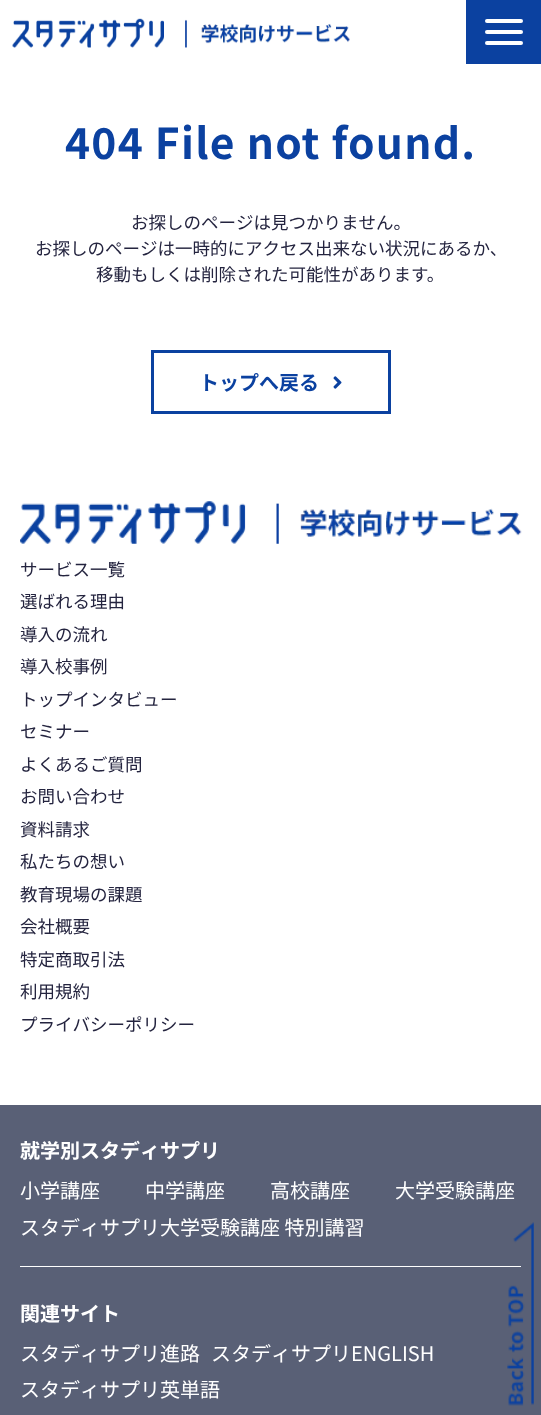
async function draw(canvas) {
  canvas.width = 541;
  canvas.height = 1415;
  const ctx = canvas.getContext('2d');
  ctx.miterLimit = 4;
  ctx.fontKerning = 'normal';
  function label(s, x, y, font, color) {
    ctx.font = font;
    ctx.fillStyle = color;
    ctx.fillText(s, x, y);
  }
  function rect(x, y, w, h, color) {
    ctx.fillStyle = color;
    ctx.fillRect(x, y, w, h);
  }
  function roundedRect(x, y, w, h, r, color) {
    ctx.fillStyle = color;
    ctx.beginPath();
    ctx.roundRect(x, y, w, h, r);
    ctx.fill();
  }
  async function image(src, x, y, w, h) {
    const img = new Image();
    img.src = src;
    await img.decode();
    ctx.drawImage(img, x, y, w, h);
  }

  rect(0, 0, 541, 1415, '#fff');
  await image('assets/img1.png', 12, 18, 338, 30);
  rect(466, 0, 75, 64, '#0b41a0');
  roundedRect(485, 19, 38, 4, 2, '#fff');
  roundedRect(485, 30, 38, 4, 2, '#fff');
  roundedRect(485, 41, 38, 4, 2, '#fff');
  ctx.letterSpacing = '1.25px';
  label('404 File not found.', 65, 159, 'bold 42.5px Noto Sans JP', '#0b41a0');
  ctx.letterSpacing = '0px';
  label('お探しのページは見つかりません。', 131, 229, '17.5px Noto Sans JP', '#24243f');
  label('お探しのページは一時的にアクセス出来ない状況にあるか、', 35, 255, '17.5px Noto Sans JP', '#24243f');
  label('移動もしくは削除された可能性があります。', 96, 281, '17.5px Noto Sans JP', '#24243f');
  ctx.strokeStyle = '#0b41a0';
  ctx.lineWidth = 3;
  ctx.strokeRect(152.5, 351.5, 237, 61);
  label('トップへ戻る', 199, 390, 'bold 20px Noto Sans JP', '#0b41a0');
  await image('assets/img2.png', 333, 376, 9, 13);
  await image('assets/img3.png', 20, 501, 502, 43);
  label('サービス一覧', 20, 576, '17.5px Noto Sans JP', '#24243f');
  label('選ばれる理由', 20, 608, '17.5px Noto Sans JP', '#24243f');
  label('導入の流れ', 20, 641, '17.5px Noto Sans JP', '#24243f');
  label('導入校事例', 20, 673, '17.5px Noto Sans JP', '#24243f');
  label('トップインタビュー', 20, 706, '17.5px Noto Sans JP', '#24243f');
  label('セミナー', 20, 738, '17.5px Noto Sans JP', '#24243f');
  label('よくあるご質問', 20, 771, '17.5px Noto Sans JP', '#24243f');
  label('お問い合わせ', 20, 803, '17.5px Noto Sans JP', '#24243f');
  label('資料請求', 20, 836, '17.5px Noto Sans JP', '#24243f');
  label('私たちの想い', 20, 868, '17.5px Noto Sans JP', '#24243f');
  label('教育現場の課題', 20, 901, '17.5px Noto Sans JP', '#24243f');
  label('会社概要', 20, 933, '17.5px Noto Sans JP', '#24243f');
  label('特定商取引法', 20, 966, '17.5px Noto Sans JP', '#24243f');
  label('利用規約', 20, 998, '17.5px Noto Sans JP', '#24243f');
  label('プライバシーポリシー', 20, 1031, '17.5px Noto Sans JP', '#24243f');
  rect(0, 1105, 541, 310, '#596076');
  label('就学別スタディサプリ', 20, 1158, 'bold 20px Noto Sans JP', '#fff');
  label('小学講座', 20, 1198, '20px Noto Sans JP', '#fff');
  label('中学講座', 145, 1198, '20px Noto Sans JP', '#fff');
  label('高校講座', 270, 1198, '20px Noto Sans JP', '#fff');
  label('大学受験講座', 395, 1198, '20px Noto Sans JP', '#fff');
  label('スタディサプリ大学受験講座 特別講習', 20, 1235, '20px Noto Sans JP', '#fff');
  rect(20, 1266, 501, 1, '#fff');
  label('関連サイト', 20, 1321, 'bold 20px Noto Sans JP', '#fff');
  label('スタディサプリ進路', 20, 1361, '20px Noto Sans JP', '#fff');
  label('スタディサプリENGLISH', 211, 1361, '20px Noto Sans JP', '#fff');
  label('スタディサプリ英単語', 20, 1397, '20px Noto Sans JP', '#fff');
  await image('assets/img4.png', 507, 1222, 27, 184);
}

draw(document.querySelector('canvas'));
